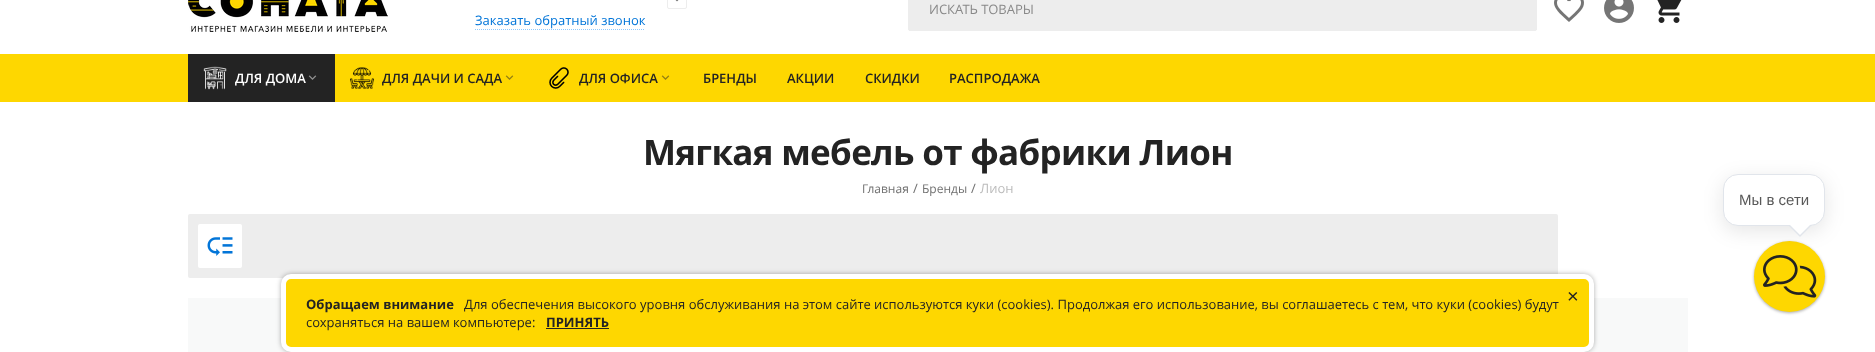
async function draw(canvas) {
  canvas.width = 1875;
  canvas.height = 352;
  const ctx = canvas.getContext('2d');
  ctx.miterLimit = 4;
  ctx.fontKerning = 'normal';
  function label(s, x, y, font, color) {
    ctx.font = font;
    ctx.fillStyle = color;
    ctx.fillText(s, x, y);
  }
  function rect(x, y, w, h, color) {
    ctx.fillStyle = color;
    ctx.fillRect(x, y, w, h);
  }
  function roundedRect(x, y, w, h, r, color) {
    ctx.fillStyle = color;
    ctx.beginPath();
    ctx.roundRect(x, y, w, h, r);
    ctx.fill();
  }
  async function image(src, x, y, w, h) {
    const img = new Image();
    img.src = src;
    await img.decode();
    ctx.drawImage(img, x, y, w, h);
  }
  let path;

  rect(0, 0, 1875, 352, '#fff');
  await image('assets/img1.png', 188, 0, 200, 32);
  ctx.fillStyle = '#ededed';
  ctx.beginPath();
  ctx.roundRect(908.5, -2.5, 628, 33, 1.5);
  ctx.fill();
  ctx.strokeStyle = '#ededed';
  ctx.stroke();
  label('ИСКАТЬ ТОВАРЫ', 929, 14, '13px Open Sans', '#898989');
  await image('assets/img2.png', 1554, 0, 30, 22);
  await image('assets/img3.png', 1604, 0, 30, 23);
  await image('assets/img4.png', 1657, 0, 25, 23);
  ctx.beginPath();
  ctx.roundRect(667.5, -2.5, 19, 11, 1.5);
  ctx.stroke();
  await image('assets/img5.png', 675, 0, 4, 2);
  path = new Path2D('M475 29.5H645');
  ctx.strokeStyle = '#8fcafe';
  ctx.setLineDash([1, 1]);
  ctx.stroke(path);
  label('Заказать обратный звонок', 475, 25, '13px Open Sans', '#0275d8');
  rect(0, 54, 1875, 48, '#fed700');
  rect(188, 54, 147, 48, '#232323');
  await image('assets/img6.png', 203, 66, 24, 24);
  label('ДЛЯ ДОМА', 235, 83, '600 13px Open Sans', '#fff');
  await image('assets/img7.png', 308, 75, 9, 5);
  await image('assets/img8.png', 350, 67, 24, 22);
  label('ДЛЯ ДАЧИ И САДА', 382, 83, '600 13px Open Sans', '#232323');
  await image('assets/img9.png', 505, 75, 9, 5);
  await image('assets/img10.png', 549, 67, 20, 22);
  label('ДЛЯ ОФИСА', 579, 83, '600 13px Open Sans', '#232323');
  await image('assets/img9.png', 661, 75, 9, 5);
  label('БРЕНДЫ', 703, 83, '600 13px Open Sans', '#232323');
  label('АКЦИИ', 787, 83, '600 13px Open Sans', '#232323');
  label('СКИДКИ', 865, 83, '600 13px Open Sans', '#232323');
  label('РАСПРОДАЖА', 949, 83, '600 13px Open Sans', '#232323');
  ctx.letterSpacing = '-0.7px';
  label('Мягкая мебель от фабрики Лион', 643, 165, 'bold 35px Open Sans', '#232323');
  ctx.letterSpacing = '0px';
  label('Главная', 862, 193, '12px Open Sans', '#707070');
  label('/', 913, 193, '13px Open Sans', '#707070');
  label('Бренды', 922, 193, '12px Open Sans', '#707070');
  label('/', 971, 193, '13px Open Sans', '#707070');
  label('Лион', 980, 193, '13px Open Sans', '#bcbcbc');
  roundedRect(188, 214, 1370, 64, 2, '#ededed');
  roundedRect(198, 224, 44, 44, 2, '#fff');
  await image('assets/img11.png', 207, 237, 26, 19);
  rect(188, 298, 1500, 54, '#f8f9f9');
  ctx.fillStyle = '#00000054';
  ctx.filter = 'blur(1.5px)';
  ctx.beginPath();
  ctx.roundRect(1754, 242, 71, 71, 35.5);
  ctx.fill();
  ctx.filter = 'none';
  ctx.fillStyle = '#fed700';
  ctx.beginPath();
  ctx.arc(1789.5, 276.5, 35.5, 0, 2 * Math.PI);
  ctx.fill();
  await image('assets/img12.png', 1763, 255, 54, 43);
  ctx.fillStyle = '#0000001a';
  ctx.filter = 'blur(10px)';
  ctx.beginPath();
  ctx.roundRect(1723, 179, 102, 52, 15);
  ctx.fill();
  ctx.filter = 'none';
  ctx.fillStyle = '#fff';
  ctx.beginPath();
  ctx.roundRect(1723.5, 174.5, 101, 51, 14.5);
  ctx.fill();
  ctx.strokeStyle = '#e1e5eb';
  ctx.setLineDash([]);
  ctx.stroke();
  label('Мы в сети', 1739, 205, '15px Liberation Sans', '#595959');
  ctx.fillStyle = '#e1e5eb';
  path = new Path2D('M1788 225H1812L1800 237Z');
  ctx.fill(path);
  ctx.fillStyle = '#fff';
  path = new Path2D('M1790 225H1810L1800 235Z');
  ctx.fill(path);
  ctx.fillStyle = '#0000004d';
  ctx.filter = 'blur(2.5px)';
  ctx.beginPath();
  ctx.roundRect(281, 274, 1313, 78, 10);
  ctx.fill();
  ctx.filter = 'none';
  ctx.fillStyle = '#fed700';
  ctx.beginPath();
  ctx.roundRect(283.5, 276.5, 1308, 73, 7.5);
  ctx.fill();
  ctx.strokeStyle = '#fff';
  ctx.lineWidth = 5;
  ctx.stroke();
  label('×', 1567, 303, '20px Liberation Sans', '#232323');
  label('Обращаем внимание', 306, 309, 'bold 13px Open Sans', '#232323');
  label('Для обеспечения высокого уровня обслуживания на этом сайте используются куки (cookies). Продолжая его использование, вы соглашаетесь с тем, что куки (cookies) будут', 464, 309, '13px Open Sans', '#232323');
  label('сохраняться на вашем компьютере:', 306, 327, '13px Open Sans', '#232323');
  label('ПРИНЯТЬ', 546, 327, 'bold 13px Open Sans', '#232323');
  rect(546, 328, 63, 1, '#232323');
}

draw(document.querySelector('canvas'));
